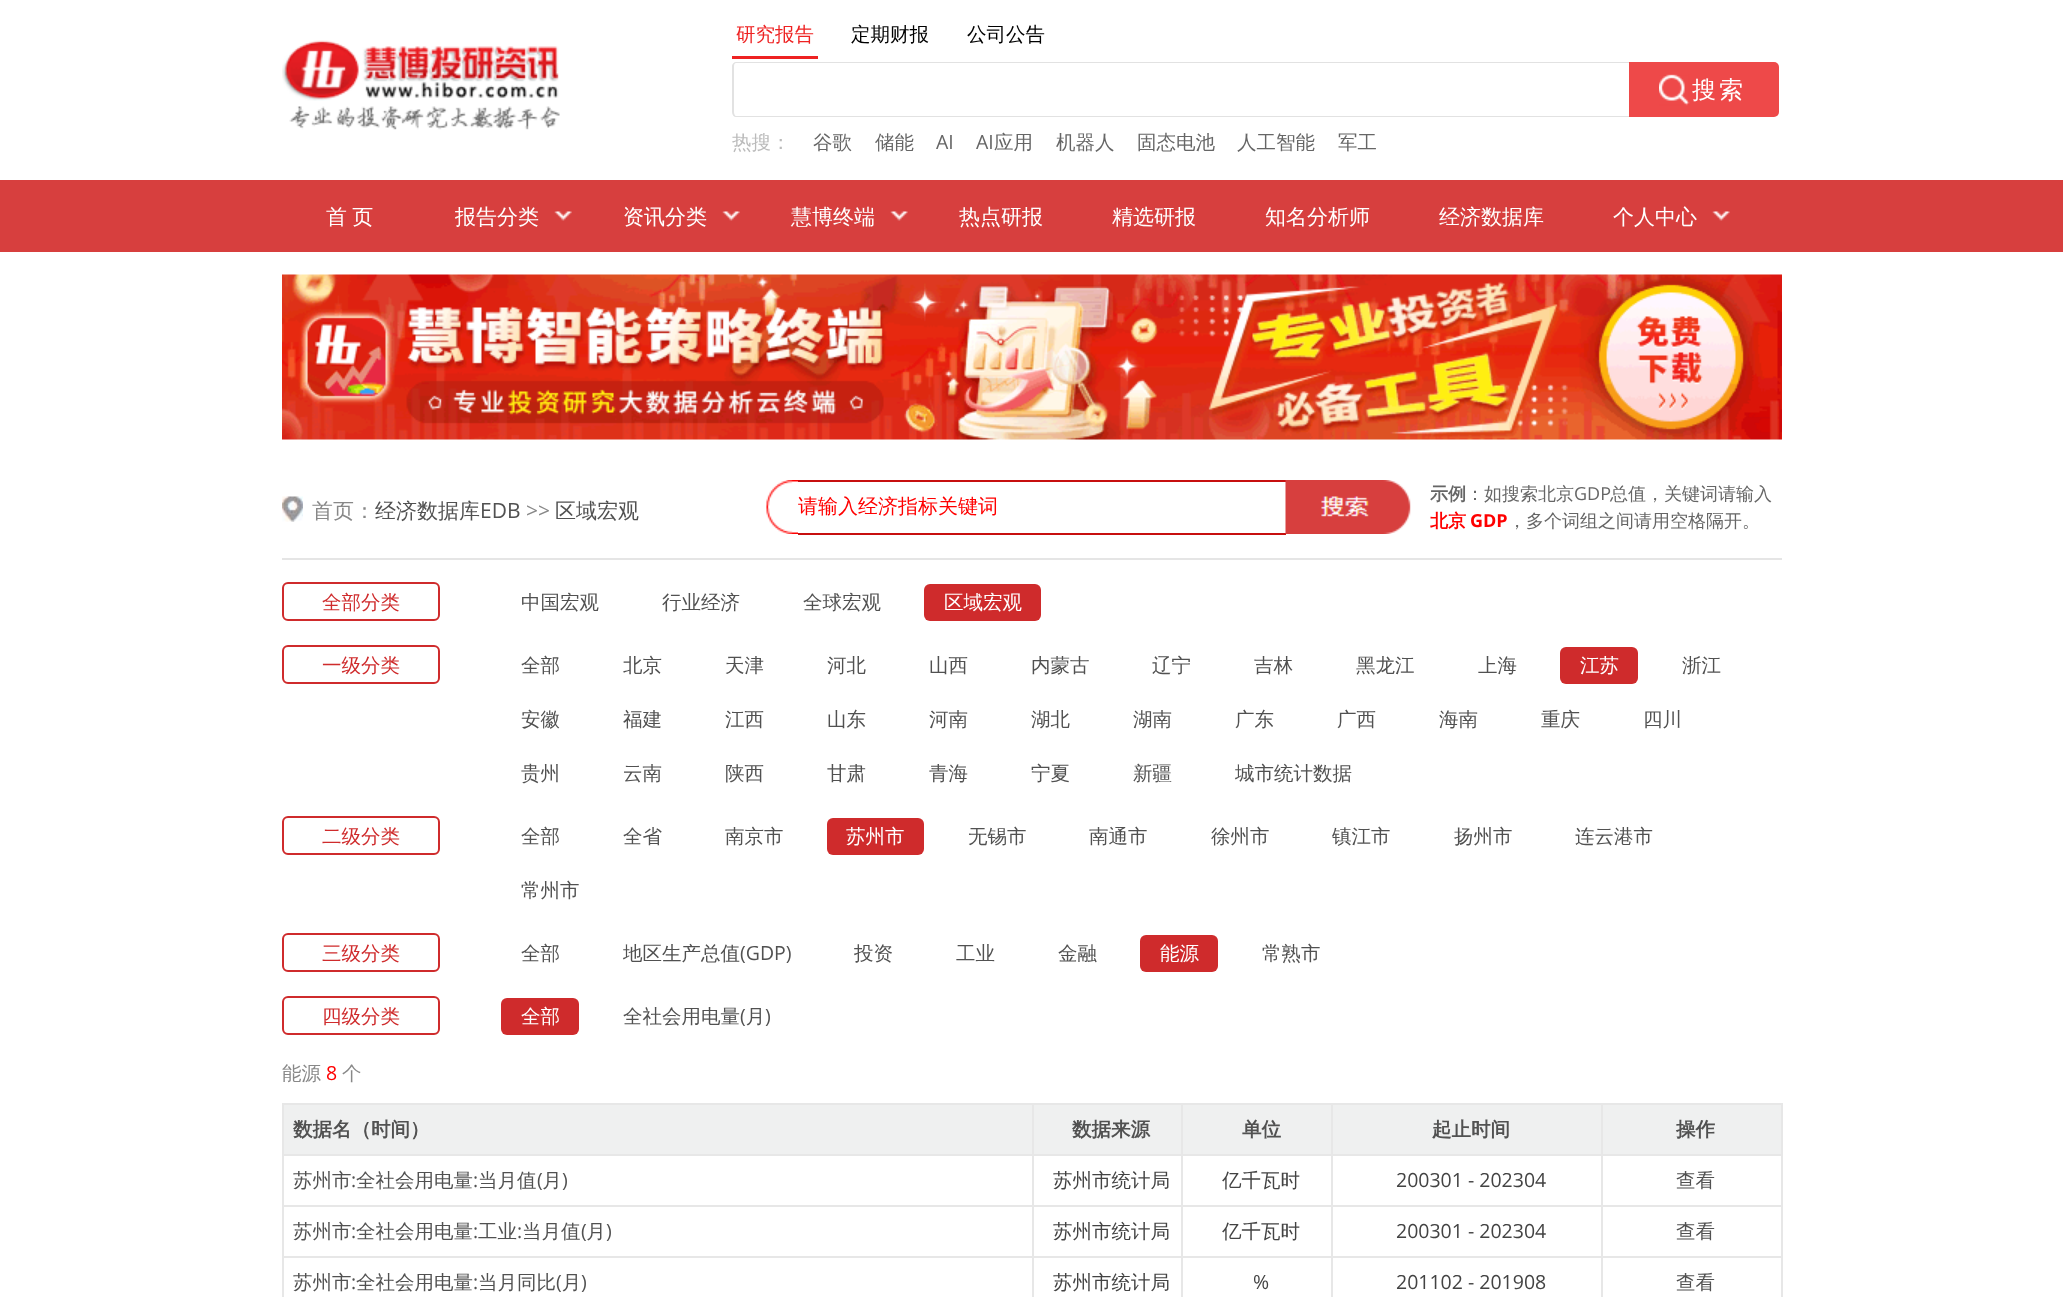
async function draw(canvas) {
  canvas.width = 2063;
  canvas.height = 1297;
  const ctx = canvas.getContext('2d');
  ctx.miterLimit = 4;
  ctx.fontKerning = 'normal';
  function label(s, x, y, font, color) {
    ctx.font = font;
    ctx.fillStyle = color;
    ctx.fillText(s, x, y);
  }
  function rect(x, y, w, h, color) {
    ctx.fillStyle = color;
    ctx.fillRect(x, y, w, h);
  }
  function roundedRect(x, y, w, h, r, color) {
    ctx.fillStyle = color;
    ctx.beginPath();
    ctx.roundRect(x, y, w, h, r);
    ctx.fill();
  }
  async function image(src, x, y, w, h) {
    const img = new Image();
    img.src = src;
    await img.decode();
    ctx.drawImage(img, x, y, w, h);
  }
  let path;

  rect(0, 0, 2063, 1297, '#fff');
  await image('assets/img1.png', 282, 40, 278, 90);
  rect(732, 56, 86, 3, '#e22');
  label('研究报告', 736, 41, '500 19.5px WenQuanYi Zen Hei', '#e22');
  label('定期财报', 851, 41, '500 19.5px WenQuanYi Zen Hei', '#000');
  label('公司公告', 967, 41, '500 19.5px WenQuanYi Zen Hei', '#000');
  ctx.fillStyle = '#e2e2e2';
  path = new Path2D('M736 62H1629V117H736C734 117 732 115 732 112V66C732 64 734 62 736 62ZM736 63H1629V116H736C735 116 734 114 734 112V66C734 64 735 63 736 63Z');
  ctx.fill(path, 'evenodd');
  ctx.fillStyle = '#ee4949';
  ctx.beginPath();
  ctx.roundRect(1629, 62, 150, 55, [0, 5, 5, 0]);
  ctx.fill();
  await image('assets/img2.png', 1659, 74, 31, 32);
  ctx.letterSpacing = '3px';
  label('搜索', 1692, 98, '500 24px WenQuanYi Zen Hei', '#fff');
  ctx.letterSpacing = '0px';
  label('热搜：', 732, 149, '500 19.5px WenQuanYi Zen Hei', '#bbb');
  label('谷歌', 813, 149, '500 19.5px WenQuanYi Zen Hei', '#666');
  label('储能', 875, 149, '500 19.5px WenQuanYi Zen Hei', '#666');
  label('AI', 936, 149, '19.5px Open Sans', '#666');
  label('AI', 976, 149, '19.5px Open Sans', '#666');
  label('应用', 994, 149, '500 19.5px WenQuanYi Zen Hei', '#666');
  label('机器人', 1056, 149, '500 19.5px WenQuanYi Zen Hei', '#666');
  label('固态电池', 1137, 149, '500 19.5px WenQuanYi Zen Hei', '#666');
  label('人工智能', 1237, 149, '500 19.5px WenQuanYi Zen Hei', '#666');
  label('军工', 1338, 149, '500 19.5px WenQuanYi Zen Hei', '#666');
  rect(0, 180, 2063, 72, '#d73f3e');
  ctx.wordSpacing = '-1px';
  label('首 页', 326, 224, '500 21px WenQuanYi Zen Hei', '#fff');
  await image('assets/img3.png', 554, 211, 18, 10);
  ctx.wordSpacing = '0px';
  label('报告分类', 455, 224, '500 21px WenQuanYi Zen Hei', '#fff');
  await image('assets/img3.png', 722, 211, 18, 10);
  label('资讯分类', 623, 224, '500 21px WenQuanYi Zen Hei', '#fff');
  await image('assets/img4.png', 890, 211, 18, 10);
  label('慧博终端', 791, 224, '500 21px WenQuanYi Zen Hei', '#fff');
  label('热点研报', 959, 224, '500 21px WenQuanYi Zen Hei', '#fff');
  label('精选研报', 1112, 224, '500 21px WenQuanYi Zen Hei', '#fff');
  label('知名分析师', 1265, 224, '500 21px WenQuanYi Zen Hei', '#fff');
  label('经济数据库', 1439, 224, '500 21px WenQuanYi Zen Hei', '#fff');
  await image('assets/img4.png', 1712, 211, 18, 10);
  label('个人中心', 1613, 224, '500 21px WenQuanYi Zen Hei', '#fff');
  await image('assets/img5.png', 282, 274, 1500, 166);
  rect(282, 558, 1500, 2, '#e5e5e5');
  await image('assets/img6.png', 282, 496, 21, 26);
  label('首页：', 312, 518, '500 21px WenQuanYi Zen Hei', '#888');
  label('经济数据库', 375, 518, '500 21px WenQuanYi Zen Hei', '#515151');
  label('EDB', 480, 518, '21px Open Sans', '#515151');
  label('>>', 526, 518, '21px Open Sans', '#888');
  label('区域宏观', 555, 518, '500 21px WenQuanYi Zen Hei', '#515151');
  await image('assets/img7.png', 766, 480, 32, 54);
  rect(798, 480, 488, 2, '#c70f0f');
  rect(798, 533, 488, 2, '#c70f0f');
  label('请输入经济指标关键词', 798, 513, '500 20px WenQuanYi Zen Hei', '#f00');
  await image('assets/img8.png', 1285, 480, 126, 54);
  label('示例', 1430, 500, 'bold 18px WenQuanYi Zen Hei', '#666');
  label('：如搜索北京', 1466, 500, '500 18px WenQuanYi Zen Hei', '#666');
  label('GDP', 1574, 500, '18px Open Sans', '#666');
  label('总值，关键词请输入', 1610, 500, '500 18px WenQuanYi Zen Hei', '#666');
  label('北京', 1430, 527, 'bold 18px WenQuanYi Zen Hei', '#f00');
  label('GDP', 1470, 527, 'bold 18px Open Sans', '#f00');
  label('，多个词组之间请用空格隔开。', 1508, 527, '500 18px WenQuanYi Zen Hei', '#666');
  ctx.beginPath();
  ctx.roundRect(283, 583, 156, 37, 5);
  ctx.strokeStyle = '#cf2b2c';
  ctx.lineWidth = 2;
  ctx.stroke();
  label('全部分类', 322, 609, '500 19.5px WenQuanYi Zen Hei', '#cf2b2c');
  label('中国宏观', 521, 609, '500 19.5px WenQuanYi Zen Hei', '#515151');
  label('行业经济', 662, 609, '500 19.5px WenQuanYi Zen Hei', '#515151');
  label('全球宏观', 803, 609, '500 19.5px WenQuanYi Zen Hei', '#515151');
  roundedRect(924, 584, 117, 37, 6, '#cf2b2c');
  label('区域宏观', 944, 609, '500 19.5px WenQuanYi Zen Hei', '#fff');
  ctx.beginPath();
  ctx.roundRect(283, 646, 156, 37, 5);
  ctx.stroke();
  label('一级分类', 322, 672, '500 19.5px WenQuanYi Zen Hei', '#cf2b2c');
  label('全部', 521, 672, '500 19.5px WenQuanYi Zen Hei', '#515151');
  label('北京', 623, 672, '500 19.5px WenQuanYi Zen Hei', '#515151');
  label('天津', 725, 672, '500 19.5px WenQuanYi Zen Hei', '#515151');
  label('河北', 827, 672, '500 19.5px WenQuanYi Zen Hei', '#515151');
  label('山西', 929, 672, '500 19.5px WenQuanYi Zen Hei', '#515151');
  label('内蒙古', 1031, 672, '500 19.5px WenQuanYi Zen Hei', '#515151');
  label('辽宁', 1152, 672, '500 19.5px WenQuanYi Zen Hei', '#515151');
  label('吉林', 1254, 672, '500 19.5px WenQuanYi Zen Hei', '#515151');
  label('黑龙江', 1356, 672, '500 19.5px WenQuanYi Zen Hei', '#515151');
  label('上海', 1478, 672, '500 19.5px WenQuanYi Zen Hei', '#515151');
  roundedRect(1560, 647, 78, 37, 6, '#cf2b2c');
  label('江苏', 1580, 672, '500 19.5px WenQuanYi Zen Hei', '#fff');
  label('浙江', 1682, 672, '500 19.5px WenQuanYi Zen Hei', '#515151');
  label('安徽', 521, 726, '500 19.5px WenQuanYi Zen Hei', '#515151');
  label('福建', 623, 726, '500 19.5px WenQuanYi Zen Hei', '#515151');
  label('江西', 725, 726, '500 19.5px WenQuanYi Zen Hei', '#515151');
  label('山东', 827, 726, '500 19.5px WenQuanYi Zen Hei', '#515151');
  label('河南', 929, 726, '500 19.5px WenQuanYi Zen Hei', '#515151');
  label('湖北', 1031, 726, '500 19.5px WenQuanYi Zen Hei', '#515151');
  label('湖南', 1133, 726, '500 19.5px WenQuanYi Zen Hei', '#515151');
  label('广东', 1235, 726, '500 19.5px WenQuanYi Zen Hei', '#515151');
  label('广西', 1337, 726, '500 19.5px WenQuanYi Zen Hei', '#515151');
  label('海南', 1439, 726, '500 19.5px WenQuanYi Zen Hei', '#515151');
  label('重庆', 1541, 726, '500 19.5px WenQuanYi Zen Hei', '#515151');
  label('四川', 1643, 726, '500 19.5px WenQuanYi Zen Hei', '#515151');
  label('贵州', 521, 780, '500 19.5px WenQuanYi Zen Hei', '#515151');
  label('云南', 623, 780, '500 19.5px WenQuanYi Zen Hei', '#515151');
  label('陕西', 725, 780, '500 19.5px WenQuanYi Zen Hei', '#515151');
  label('甘肃', 827, 780, '500 19.5px WenQuanYi Zen Hei', '#515151');
  label('青海', 929, 780, '500 19.5px WenQuanYi Zen Hei', '#515151');
  label('宁夏', 1031, 780, '500 19.5px WenQuanYi Zen Hei', '#515151');
  label('新疆', 1133, 780, '500 19.5px WenQuanYi Zen Hei', '#515151');
  label('城市统计数据', 1235, 780, '500 19.5px WenQuanYi Zen Hei', '#515151');
  ctx.beginPath();
  ctx.roundRect(283, 817, 156, 37, 5);
  ctx.stroke();
  label('二级分类', 322, 843, '500 19.5px WenQuanYi Zen Hei', '#cf2b2c');
  label('全部', 521, 843, '500 19.5px WenQuanYi Zen Hei', '#515151');
  label('全省', 623, 843, '500 19.5px WenQuanYi Zen Hei', '#515151');
  label('南京市', 725, 843, '500 19.5px WenQuanYi Zen Hei', '#515151');
  roundedRect(827, 818, 97, 37, 6, '#cf2b2c');
  label('苏州市', 846, 843, '500 19.5px WenQuanYi Zen Hei', '#fff');
  label('无锡市', 968, 843, '500 19.5px WenQuanYi Zen Hei', '#515151');
  label('南通市', 1089, 843, '500 19.5px WenQuanYi Zen Hei', '#515151');
  label('徐州市', 1211, 843, '500 19.5px WenQuanYi Zen Hei', '#515151');
  label('镇江市', 1332, 843, '500 19.5px WenQuanYi Zen Hei', '#515151');
  label('扬州市', 1454, 843, '500 19.5px WenQuanYi Zen Hei', '#515151');
  label('连云港市', 1575, 843, '500 19.5px WenQuanYi Zen Hei', '#515151');
  label('常州市', 521, 897, '500 19.5px WenQuanYi Zen Hei', '#515151');
  ctx.beginPath();
  ctx.roundRect(283, 934, 156, 37, 5);
  ctx.stroke();
  label('三级分类', 322, 960, '500 19.5px WenQuanYi Zen Hei', '#cf2b2c');
  label('全部', 521, 960, '500 19.5px WenQuanYi Zen Hei', '#515151');
  label('地区生产总值', 623, 960, '500 19.5px WenQuanYi Zen Hei', '#515151');
  label('(GDP)', 740, 960, '19.5px Open Sans', '#515151');
  label('投资', 854, 960, '500 19.5px WenQuanYi Zen Hei', '#515151');
  label('工业', 956, 960, '500 19.5px WenQuanYi Zen Hei', '#515151');
  label('金融', 1058, 960, '500 19.5px WenQuanYi Zen Hei', '#515151');
  roundedRect(1140, 935, 78, 37, 6, '#cf2b2c');
  label('能源', 1160, 960, '500 19.5px WenQuanYi Zen Hei', '#fff');
  label('常熟市', 1262, 960, '500 19.5px WenQuanYi Zen Hei', '#515151');
  ctx.beginPath();
  ctx.roundRect(283, 997, 156, 37, 5);
  ctx.stroke();
  label('四级分类', 322, 1023, '500 19.5px WenQuanYi Zen Hei', '#cf2b2c');
  roundedRect(501, 998, 78, 37, 6, '#cf2b2c');
  label('全部', 521, 1023, '500 19.5px WenQuanYi Zen Hei', '#fff');
  label('全社会用电量 月', 623, 1023, '500 19.5px WenQuanYi Zen Hei', '#515151');
  label('(', 740, 1023, '19.5px Open Sans', '#515151');
  label(')', 765, 1023, '19.5px Open Sans', '#515151');
  label('能源', 282, 1080, '500 19.5px WenQuanYi Zen Hei', '#888');
  label('8', 326, 1080, '19.5px Open Sans', '#f00');
  label('个', 342, 1080, '500 19.5px WenQuanYi Zen Hei', '#888');
  rect(282, 1103, 1500, 2, '#e7e7e7');
  rect(1781, 1103, 2, 194, '#e7e7e7');
  rect(282, 1103, 2, 194, '#e7e7e7');
  rect(284, 1105, 748, 49, '#eff0f0');
  label('数据名（时间）', 293, 1136, 'bold 19.5px WenQuanYi Zen Hei', '#515151');
  rect(1034, 1105, 147, 49, '#eff0f0');
  rect(1601, 1154, 181, 2, '#e7e7e7');
  rect(1601, 1205, 181, 2, '#e7e7e7');
  rect(1601, 1256, 181, 2, '#e7e7e7');
  rect(1601, 1256, 2, 41, '#e7e7e7');
  rect(1331, 1256, 271, 2, '#e7e7e7');
  rect(1601, 1205, 2, 52, '#e7e7e7');
  rect(1331, 1205, 271, 2, '#e7e7e7');
  rect(1601, 1154, 2, 52, '#e7e7e7');
  rect(1331, 1154, 271, 2, '#e7e7e7');
  rect(1331, 1256, 2, 41, '#e7e7e7');
  rect(1181, 1256, 151, 2, '#e7e7e7');
  rect(1331, 1205, 2, 52, '#e7e7e7');
  rect(1181, 1205, 151, 2, '#e7e7e7');
  rect(1331, 1154, 2, 52, '#e7e7e7');
  rect(1181, 1154, 151, 2, '#e7e7e7');
  rect(1181, 1256, 2, 41, '#e7e7e7');
  rect(1032, 1256, 150, 2, '#e7e7e7');
  rect(1181, 1205, 2, 52, '#e7e7e7');
  rect(1032, 1205, 150, 2, '#e7e7e7');
  rect(1181, 1154, 2, 52, '#e7e7e7');
  rect(1032, 1154, 150, 2, '#e7e7e7');
  rect(1032, 1256, 2, 41, '#e7e7e7');
  rect(282, 1256, 752, 2, '#e7e7e7');
  rect(1032, 1205, 2, 52, '#e7e7e7');
  rect(282, 1205, 752, 2, '#e7e7e7');
  rect(1032, 1154, 2, 52, '#e7e7e7');
  rect(282, 1154, 752, 2, '#e7e7e7');
  rect(1032, 1103, 2, 52, '#e7e7e7');
  label('数据来源', 1072, 1136, 'bold 19.5px WenQuanYi Zen Hei', '#515151');
  rect(1183, 1105, 148, 49, '#eff0f0');
  rect(1181, 1103, 2, 52, '#e7e7e7');
  label('单位', 1242, 1136, 'bold 19.5px WenQuanYi Zen Hei', '#515151');
  rect(1333, 1105, 268, 49, '#eff0f0');
  rect(1331, 1103, 2, 52, '#e7e7e7');
  label('起止时间', 1432, 1136, 'bold 19.5px WenQuanYi Zen Hei', '#515151');
  rect(1603, 1105, 178, 49, '#eff0f0');
  rect(1601, 1103, 2, 52, '#e7e7e7');
  label('操作', 1676, 1136, 'bold 19.5px WenQuanYi Zen Hei', '#515151');
  label('苏州市', 293, 1187, '500 19.5px WenQuanYi Zen Hei', '#515151');
  label('全社会用电量', 356, 1187, '500 19.5px WenQuanYi Zen Hei', '#515151');
  label('当月值 月', 478, 1187, '500 19.5px WenQuanYi Zen Hei', '#515151');
  label(':', 351, 1187, '19.5px Open Sans', '#515151');
  label(':', 473, 1187, '19.5px Open Sans', '#515151');
  label('(', 537, 1187, '19.5px Open Sans', '#515151');
  label(')', 562, 1187, '19.5px Open Sans', '#515151');
  label('苏州市统计局', 1053, 1187, '500 19.5px WenQuanYi Zen Hei', '#434343');
  label('亿千瓦时', 1222, 1187, '500 19.5px WenQuanYi Zen Hei', '#434343');
  label('200301 - 202304', 1396, 1187, '19.5px Open Sans', '#434343');
  label('查看', 1676, 1187, '500 19.5px WenQuanYi Zen Hei', '#515151');
  label('苏州市', 293, 1238, '500 19.5px WenQuanYi Zen Hei', '#515151');
  label('全社会用电量', 356, 1238, '500 19.5px WenQuanYi Zen Hei', '#515151');
  label('工业', 478, 1238, '500 19.5px WenQuanYi Zen Hei', '#515151');
  label('当月值 月', 522, 1238, '500 19.5px WenQuanYi Zen Hei', '#515151');
  label(':', 351, 1238, '19.5px Open Sans', '#515151');
  label(':', 473, 1238, '19.5px Open Sans', '#515151');
  label(':', 517, 1238, '19.5px Open Sans', '#515151');
  label('(', 581, 1238, '19.5px Open Sans', '#515151');
  label(')', 606, 1238, '19.5px Open Sans', '#515151');
  label('苏州市统计局', 1053, 1238, '500 19.5px WenQuanYi Zen Hei', '#434343');
  label('亿千瓦时', 1222, 1238, '500 19.5px WenQuanYi Zen Hei', '#434343');
  label('200301 - 202304', 1396, 1238, '19.5px Open Sans', '#434343');
  label('查看', 1676, 1238, '500 19.5px WenQuanYi Zen Hei', '#515151');
  label('苏州市', 293, 1289, '500 19.5px WenQuanYi Zen Hei', '#515151');
  label('全社会用电量', 356, 1289, '500 19.5px WenQuanYi Zen Hei', '#515151');
  label('当月同比 月', 478, 1289, '500 19.5px WenQuanYi Zen Hei', '#515151');
  label(':', 351, 1289, '19.5px Open Sans', '#515151');
  label(':', 473, 1289, '19.5px Open Sans', '#515151');
  label('(', 556, 1289, '19.5px Open Sans', '#515151');
  label(')', 581, 1289, '19.5px Open Sans', '#515151');
  label('苏州市统计局', 1053, 1289, '500 19.5px WenQuanYi Zen Hei', '#434343');
  label('%', 1253, 1289, '19.5px Open Sans', '#434343');
  label('201102 - 201908', 1396, 1289, '19.5px Open Sans', '#434343');
  label('查看', 1676, 1289, '500 19.5px WenQuanYi Zen Hei', '#515151');
}

draw(document.querySelector('canvas'));
